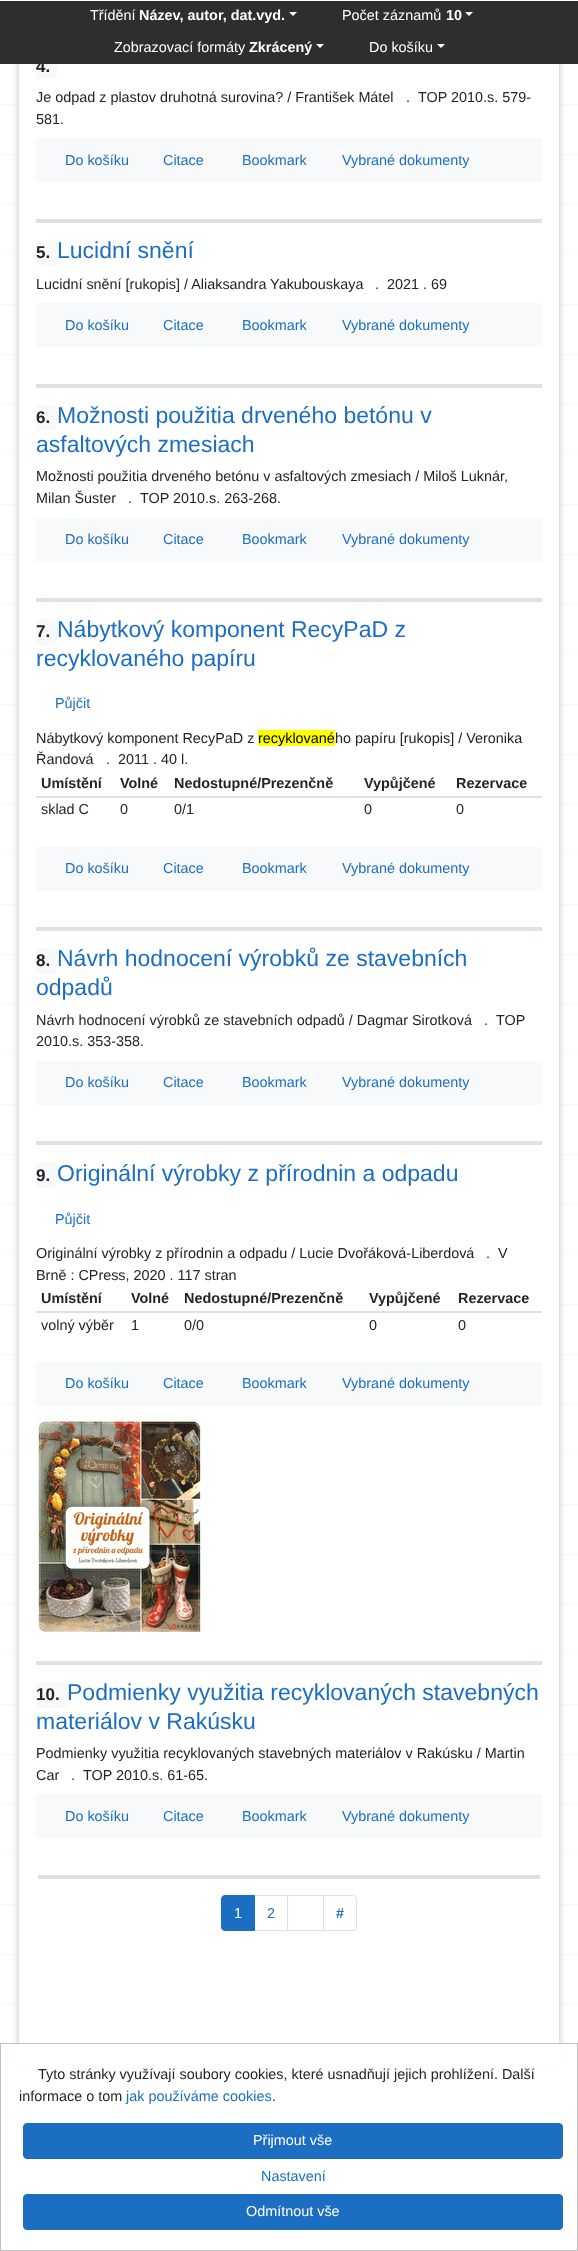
async function draw(canvas) {
  canvas.width = 578;
  canvas.height = 2251;
  const ctx = canvas.getContext('2d');
  ctx.miterLimit = 4;
  ctx.fontKerning = 'normal';
  function label(s, x, y, font, color) {
    ctx.font = font;
    ctx.fillStyle = color;
    ctx.fillText(s, x, y);
  }
  function rect(x, y, w, h, color) {
    ctx.fillStyle = color;
    ctx.fillRect(x, y, w, h);
  }
  function roundedRect(x, y, w, h, r, color) {
    ctx.fillStyle = color;
    ctx.beginPath();
    ctx.roundRect(x, y, w, h, r);
    ctx.fill();
  }
  async function image(src, x, y, w, h) {
    const img = new Image();
    img.src = src;
    await img.decode();
    ctx.drawImage(img, x, y, w, h);
  }
  let path;

  rect(0, 0, 578, 2251, '#fff');
  await image('assets/img1.png', 0, 104, 578, 1901);
  ctx.fillStyle = '#00000033';
  ctx.filter = 'blur(3px)';
  ctx.beginPath();
  ctx.rect(18, -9, 542, 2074);
  ctx.fill();
  ctx.filter = 'none';
  rect(19, 64, 540, 1979, '#fff');
  roundedRect(36, 53, 21, 26, 4, '#f8f9fa');
  label('4.', 36, 72, 'bold 17px Liberation Sans', '#212529');
  rect(0, 1, 578, 63, '#2e2e2e');
  rect(13, 0, 552, 1, '#fff');
  label('Třídění', 90, 20, '14.4px Liberation Sans', '#fff');
  label('Název, autor, dat.vyd.', 139, 20, 'bold 14.4px Liberation Sans', '#fff');
  path = new Path2D('M289 12H297L293 16Z');
  ctx.fill(path);
  label('Počet záznamů', 342, 20, '14.4px Liberation Sans', '#fff');
  label('10', 446, 20, 'bold 14.4px Liberation Sans', '#fff');
  path = new Path2D('M465 12H473L469 16Z');
  ctx.fill(path);
  label('Zobrazovací formáty', 114, 52, '14.4px Liberation Sans', '#fff');
  label('Zkrácený', 249, 52, 'bold 14.4px Liberation Sans', '#fff');
  path = new Path2D('M316 44H324L320 48Z');
  ctx.fill(path);
  label('Do košíku', 369, 52, '14.4px Liberation Sans', '#fff');
  path = new Path2D('M437 44H445L441 48Z');
  ctx.fill(path);
  rect(36, 219, 506, 4, '#dee2e6');
  label('Je odpad z plastov druhotná surovina? / František Mátel', 36, 102, '14.4px Liberation Sans', '#212529');
  label('.', 406, 102, '14.4px Liberation Sans', '#212529');
  label('TOP 2010.s. 579-', 418, 102, '14.4px Liberation Sans', '#212529');
  label('581.', 36, 124, '14.4px Liberation Sans', '#212529');
  rect(36, 138, 506, 44, '#f8f9fa');
  label('Do košíku', 65, 165, '14.4px Liberation Sans', '#1b6ec2');
  label('Citace', 163, 165, '14.4px Liberation Sans', '#1b6ec2');
  label('Bookmark', 242, 165, '14.4px Liberation Sans', '#1b6ec2');
  label('Vybrané dokumenty', 342, 165, '14.4px Liberation Sans', '#1b6ec2');
  rect(36, 384, 506, 4, '#dee2e6');
  roundedRect(36, 240, 21, 26, 4, '#f8f9fa');
  label('5.', 36, 258, 'bold 17px Liberation Sans', '#212529');
  label('Lucidní snění', 57, 258, '23px Liberation Sans', '#1b6ec2');
  label('Lucidní snění [rukopis] / Aliaksandra Yakubouskaya', 36, 289, '14.4px Liberation Sans', '#212529');
  label('.', 375, 289, '14.4px Liberation Sans', '#212529');
  label('2021 . 69', 387, 289, '14.4px Liberation Sans', '#212529');
  rect(36, 303, 506, 44, '#f8f9fa');
  label('Do košíku', 65, 330, '14.4px Liberation Sans', '#1b6ec2');
  label('Citace', 163, 330, '14.4px Liberation Sans', '#1b6ec2');
  label('Bookmark', 242, 330, '14.4px Liberation Sans', '#1b6ec2');
  label('Vybrané dokumenty', 342, 330, '14.4px Liberation Sans', '#1b6ec2');
  rect(36, 598, 506, 4, '#dee2e6');
  roundedRect(36, 405, 21, 26, 4, '#f8f9fa');
  label('6.', 36, 423, 'bold 17px Liberation Sans', '#212529');
  label('Možnosti použitia drveného betónu v', 57, 423, '23px Liberation Sans', '#1b6ec2');
  label('asfaltových zmesiach', 36, 452, '23px Liberation Sans', '#1b6ec2');
  label('Možnosti použitia drveného betónu v asfaltových zmesiach / Miloš Luknár,', 36, 481, '14.4px Liberation Sans', '#212529');
  label('Milan Šuster', 36, 503, '14.4px Liberation Sans', '#212529');
  label('.', 128, 503, '14.4px Liberation Sans', '#212529');
  label('TOP 2010.s. 263-268.', 140, 503, '14.4px Liberation Sans', '#212529');
  rect(36, 518, 506, 44, '#f8f9fa');
  label('Do košíku', 65, 544, '14.4px Liberation Sans', '#1b6ec2');
  label('Citace', 163, 544, '14.4px Liberation Sans', '#1b6ec2');
  label('Bookmark', 242, 544, '14.4px Liberation Sans', '#1b6ec2');
  label('Vybrané dokumenty', 342, 544, '14.4px Liberation Sans', '#1b6ec2');
  rect(36, 927, 506, 4, '#dee2e6');
  roundedRect(36, 619, 21, 26, 4, '#f8f9fa');
  label('7.', 36, 637, 'bold 17px Liberation Sans', '#212529');
  label('Nábytkový komponent RecyPaD z', 57, 637, '23px Liberation Sans', '#1b6ec2');
  label('recyklovaného papíru', 36, 666, '23px Liberation Sans', '#1b6ec2');
  label('Půjčit', 55, 708, '14.4px Liberation Sans', '#1b6ec2');
  label('Nábytkový komponent RecyPaD z', 36, 743, '14.4px Liberation Sans', '#212529');
  rect(258, 730, 77, 16, '#ff0');
  label('recyklované', 258, 743, '14.4px Liberation Sans', '#000');
  label('ho papíru [rukopis] / Veronika', 335, 743, '14.4px Liberation Sans', '#212529');
  label('Řandová', 36, 764, '14.4px Liberation Sans', '#212529');
  label('.', 106, 764, '14.4px Liberation Sans', '#212529');
  label('2011 . 40 l.', 118, 764, '14.4px Liberation Sans', '#212529');
  label('Umístění', 41, 788, 'bold 14.4px Liberation Sans', '#212529');
  label('Volné', 120, 788, 'bold 14.4px Liberation Sans', '#212529');
  label('Nedostupné/Prezenčně', 174, 788, 'bold 14.4px Liberation Sans', '#212529');
  label('Vypůjčené', 364, 788, 'bold 14.4px Liberation Sans', '#212529');
  rect(36, 796, 506, 2, '#dee2e6');
  label('Rezervace', 456, 788, 'bold 14.4px Liberation Sans', '#212529');
  label('sklad C', 41, 814, '14.4px Liberation Sans', '#212529');
  label('0', 120, 814, '14.4px Liberation Sans', '#212529');
  label('0/1', 174, 814, '14.4px Liberation Sans', '#212529');
  label('0', 364, 814, '14.4px Liberation Sans', '#212529');
  label('0', 456, 814, '14.4px Liberation Sans', '#212529');
  rect(36, 847, 506, 44, '#f8f9fa');
  label('Do košíku', 65, 873, '14.4px Liberation Sans', '#1b6ec2');
  label('Citace', 163, 873, '14.4px Liberation Sans', '#1b6ec2');
  label('Bookmark', 242, 873, '14.4px Liberation Sans', '#1b6ec2');
  label('Vybrané dokumenty', 342, 873, '14.4px Liberation Sans', '#1b6ec2');
  rect(36, 1141, 506, 4, '#dee2e6');
  roundedRect(36, 948, 21, 26, 4, '#f8f9fa');
  label('8.', 36, 966, 'bold 17px Liberation Sans', '#212529');
  label('Návrh hodnocení výrobků ze stavebních', 57, 966, '23px Liberation Sans', '#1b6ec2');
  label('odpadů', 36, 995, '23px Liberation Sans', '#1b6ec2');
  label('Návrh hodnocení výrobků ze stavebních odpadů / Dagmar Sirotková', 36, 1025, '14.4px Liberation Sans', '#212529');
  label('.', 484, 1025, '14.4px Liberation Sans', '#212529');
  label('TOP', 496, 1025, '14.4px Liberation Sans', '#212529');
  label('2010.s. 353-358.', 36, 1046, '14.4px Liberation Sans', '#212529');
  rect(36, 1061, 506, 44, '#f8f9fa');
  label('Do košíku', 65, 1087, '14.4px Liberation Sans', '#1b6ec2');
  label('Citace', 163, 1087, '14.4px Liberation Sans', '#1b6ec2');
  label('Bookmark', 242, 1087, '14.4px Liberation Sans', '#1b6ec2');
  label('Vybrané dokumenty', 342, 1087, '14.4px Liberation Sans', '#1b6ec2');
  rect(36, 1661, 506, 4, '#dee2e6');
  roundedRect(36, 1162, 21, 26, 4, '#f8f9fa');
  label('9.', 36, 1181, 'bold 17px Liberation Sans', '#212529');
  label('Originální výrobky z přírodnin a odpadu', 57, 1181, '23px Liberation Sans', '#1b6ec2');
  label('Půjčit', 55, 1224, '14.4px Liberation Sans', '#1b6ec2');
  label('Originální výrobky z přírodnin a odpadu / Lucie Dvořáková-Liberdová', 36, 1258, '14.4px Liberation Sans', '#212529');
  label('.', 486, 1258, '14.4px Liberation Sans', '#212529');
  label('V', 498, 1258, '14.4px Liberation Sans', '#212529');
  label('Brně : CPress, 2020 . 117 stran', 36, 1280, '14.4px Liberation Sans', '#212529');
  label('Umístění', 41, 1303, 'bold 14.4px Liberation Sans', '#212529');
  label('Volné', 131, 1303, 'bold 14.4px Liberation Sans', '#212529');
  label('Nedostupné/Prezenčně', 184, 1303, 'bold 14.4px Liberation Sans', '#212529');
  label('Vypůjčené', 369, 1303, 'bold 14.4px Liberation Sans', '#212529');
  rect(36, 1311, 506, 2, '#dee2e6');
  label('Rezervace', 458, 1303, 'bold 14.4px Liberation Sans', '#212529');
  label('volný výběr', 41, 1330, '14.4px Liberation Sans', '#212529');
  label('1', 131, 1330, '14.4px Liberation Sans', '#212529');
  label('0/0', 184, 1330, '14.4px Liberation Sans', '#212529');
  label('0', 369, 1330, '14.4px Liberation Sans', '#212529');
  label('0', 458, 1330, '14.4px Liberation Sans', '#212529');
  rect(36, 1362, 506, 44, '#f8f9fa');
  label('Do košíku', 65, 1388, '14.4px Liberation Sans', '#1b6ec2');
  label('Citace', 163, 1388, '14.4px Liberation Sans', '#1b6ec2');
  label('Bookmark', 242, 1388, '14.4px Liberation Sans', '#1b6ec2');
  label('Vybrané dokumenty', 342, 1388, '14.4px Liberation Sans', '#1b6ec2');
  await image('assets/img2.png', 36, 1414, 165, 218);
  rect(38, 1875, 502, 4, '#dee2e6');
  roundedRect(36, 1682, 31, 26, 4, '#f8f9fa');
  label('10.', 36, 1700, 'bold 17px Liberation Sans', '#212529');
  label('Podmienky využitia recyklovaných stavebných', 67, 1700, '23px Liberation Sans', '#1b6ec2');
  label('materiálov v Rakúsku', 36, 1729, '23px Liberation Sans', '#1b6ec2');
  label('Podmienky využitia recyklovaných stavebných materiálov v Rakúsku / Martin', 36, 1758, '14.4px Liberation Sans', '#212529');
  label('Car', 36, 1780, '14.4px Liberation Sans', '#212529');
  label('.', 71, 1780, '14.4px Liberation Sans', '#212529');
  label('TOP 2010.s. 61-65.', 83, 1780, '14.4px Liberation Sans', '#212529');
  rect(36, 1794, 506, 44, '#f8f9fa');
  label('Do košíku', 65, 1821, '14.4px Liberation Sans', '#1b6ec2');
  label('Citace', 163, 1821, '14.4px Liberation Sans', '#1b6ec2');
  label('Bookmark', 242, 1821, '14.4px Liberation Sans', '#1b6ec2');
  label('Vybrané dokumenty', 342, 1821, '14.4px Liberation Sans', '#1b6ec2');
  ctx.strokeStyle = '#dee2e6';
  ctx.strokeRect(254.5, 1895.5, 33, 35);
  ctx.beginPath();
  ctx.roundRect(221.5, 1895.5, 33, 35, [3.5, 0, 0, 3.5]);
  ctx.fill();
  ctx.strokeStyle = '#1b6ec2';
  ctx.stroke();
  label('1', 234, 1918, '14.4px Liberation Sans', '#fff');
  label('2', 267, 1918, '14.4px Liberation Sans', '#1b6ec2');
  ctx.strokeStyle = '#dee2e6';
  ctx.strokeRect(287.5, 1895.5, 36, 35);
  ctx.fillStyle = '#fff';
  ctx.beginPath();
  ctx.roundRect(323.5, 1895.5, 33, 35, [0, 3.5, 3.5, 0]);
  ctx.fill();
  ctx.stroke();
  label('#', 336, 1918, 'bold 14.4px Liberation Sans', '#1b6ec2');
  rect(13, 2044, 552, 26, '#fff');
  ctx.strokeStyle = '#c0c0c0';
  ctx.strokeRect(0.5, 2043.5, 577, 207);
  label('Tyto stránky využívají soubory cookies, které usnadňují jejich prohlížení. Další', 38, 2079, '14.4px Liberation Sans', '#212529');
  label('informace o tom', 19, 2101, '14.4px Liberation Sans', '#212529');
  label('jak používáme cookies', 126, 2101, '14.4px Liberation Sans', '#1b6ec2');
  label('.', 272, 2101, '14.4px Liberation Sans', '#212529');
  ctx.fillStyle = '#1b6ec2';
  ctx.beginPath();
  ctx.roundRect(23.5, 2123.5, 539, 35, 3.5);
  ctx.fill();
  ctx.strokeStyle = '#1b6ec2';
  ctx.stroke();
  label('Přijmout vše', 253, 2145, '14.4px Liberation Sans', '#fff');
  label('Nastavení', 261, 2181, '14.4px Liberation Sans', '#1b6ec2');
  ctx.beginPath();
  ctx.roundRect(23.5, 2194.5, 539, 35, 3.5);
  ctx.fill();
  ctx.stroke();
  label('Odmítnout vše', 246, 2216, '14.4px Liberation Sans', '#fff');
}

draw(document.querySelector('canvas'));
